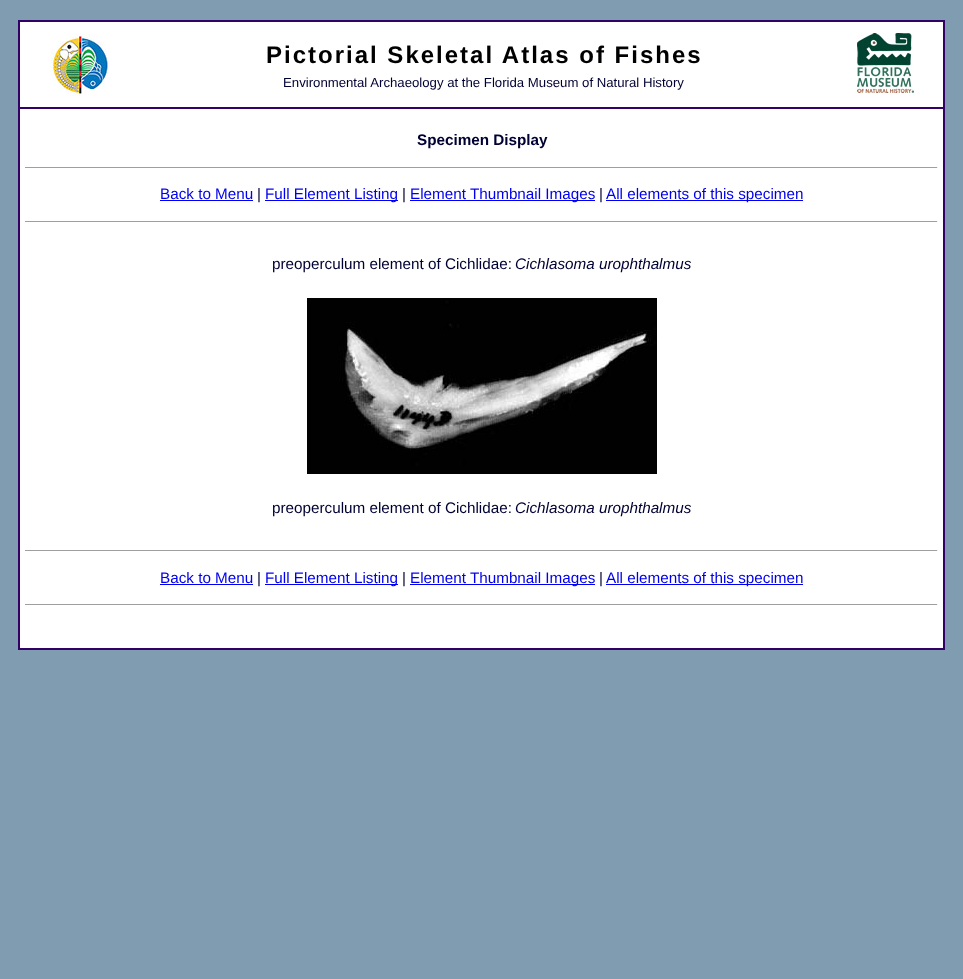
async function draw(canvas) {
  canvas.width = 963;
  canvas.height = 979;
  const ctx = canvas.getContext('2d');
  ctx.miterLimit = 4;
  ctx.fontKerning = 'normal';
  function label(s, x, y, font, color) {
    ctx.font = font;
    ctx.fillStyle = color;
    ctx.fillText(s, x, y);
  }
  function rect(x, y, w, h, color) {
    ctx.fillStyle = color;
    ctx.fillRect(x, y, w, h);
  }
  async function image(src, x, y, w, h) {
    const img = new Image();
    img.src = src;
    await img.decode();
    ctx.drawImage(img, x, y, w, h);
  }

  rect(0, 0, 963, 979, '#809cb0');
  rect(20, 22, 923, 85, '#fff');
  rect(18, 20, 927, 2, '#306');
  rect(943, 20, 2, 87, '#306');
  rect(18, 20, 2, 87, '#306');
  await image('assets/img1.png', 50, 33, 60, 63);
  ctx.letterSpacing = '2px';
  label('Pictorial Skeletal Atlas of Fishes', 266, 63, 'bold 24px Liberation Sans', '#000');
  ctx.letterSpacing = '0px';
  label('Environmental Archaeology at the Florida Museum of Natural History', 283, 87, '13.2px Liberation Sans', '#003');
  await image('assets/img2.png', 857, 33, 57, 60);
  ctx.fillStyle = '#fff';
  ctx.beginPath();
  ctx.rect(19, 108, 925, 541);
  ctx.fill();
  ctx.strokeStyle = '#306';
  ctx.lineWidth = 2;
  ctx.stroke();
  label('Specimen Display', 417, 145, 'bold 15.25px Liberation Sans', '#003');
  rect(25, 167, 913, 1, '#9f9f9f');
  rect(937, 167, 1, 1, '#eee');
  label('Back to Menu', 160, 199, '15.25px Liberation Sans', '#00e');
  rect(160, 200, 93, 1, '#00e');
  label('|', 257, 199, '15.25px Liberation Sans', '#003');
  rect(265, 200, 133, 1, '#00e');
  label('Full Element Listing', 265, 199, '15.25px Liberation Sans', '#00e');
  label('|', 402, 199, '15.25px Liberation Sans', '#003');
  rect(410, 200, 185, 1, '#00e');
  label('Element Thumbnail Images', 410, 199, '15.25px Liberation Sans', '#00e');
  label('|', 599, 199, '15.25px Liberation Sans', '#003');
  rect(606, 200, 197, 1, '#00e');
  label('All elements of this specimen', 606, 199, '15.25px Liberation Sans', '#00e');
  rect(25, 221, 913, 1, '#9f9f9f');
  rect(937, 221, 1, 1, '#eee');
  label('preoperculum element of Cichlidae:', 272, 269, '15.25px Liberation Sans', '#003');
  label('Cichlasoma urophthalmus', 515, 269, 'italic 15.25px Liberation Sans', '#003');
  await image('assets/img3.png', 307, 298, 350, 176);
  label('preoperculum element of Cichlidae:', 272, 513, '15.25px Liberation Sans', '#003');
  label('Cichlasoma urophthalmus', 515, 513, 'italic 15.25px Liberation Sans', '#003');
  rect(25, 550, 913, 1, '#9f9f9f');
  rect(937, 550, 1, 1, '#eee');
  label('Back to Menu', 160, 583, '15.25px Liberation Sans', '#00e');
  rect(160, 584, 93, 1, '#00e');
  label('|', 257, 583, '15.25px Liberation Sans', '#003');
  rect(265, 584, 133, 1, '#00e');
  label('Full Element Listing', 265, 583, '15.25px Liberation Sans', '#00e');
  label('|', 402, 583, '15.25px Liberation Sans', '#003');
  rect(410, 584, 185, 1, '#00e');
  label('Element Thumbnail Images', 410, 583, '15.25px Liberation Sans', '#00e');
  label('|', 599, 583, '15.25px Liberation Sans', '#003');
  rect(606, 584, 197, 1, '#00e');
  label('All elements of this specimen', 606, 583, '15.25px Liberation Sans', '#00e');
  rect(25, 604, 913, 1, '#9f9f9f');
  rect(937, 604, 1, 1, '#eee');
}

draw(document.querySelector('canvas'));
